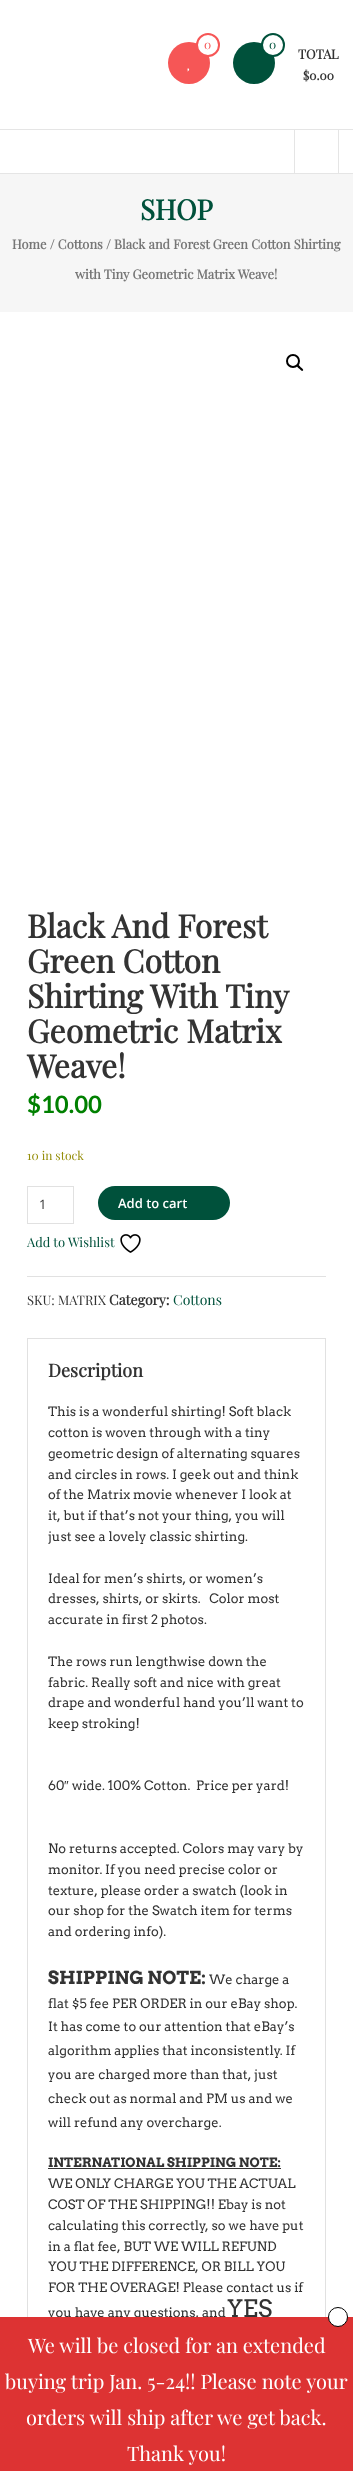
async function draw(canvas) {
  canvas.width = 353;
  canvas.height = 2471;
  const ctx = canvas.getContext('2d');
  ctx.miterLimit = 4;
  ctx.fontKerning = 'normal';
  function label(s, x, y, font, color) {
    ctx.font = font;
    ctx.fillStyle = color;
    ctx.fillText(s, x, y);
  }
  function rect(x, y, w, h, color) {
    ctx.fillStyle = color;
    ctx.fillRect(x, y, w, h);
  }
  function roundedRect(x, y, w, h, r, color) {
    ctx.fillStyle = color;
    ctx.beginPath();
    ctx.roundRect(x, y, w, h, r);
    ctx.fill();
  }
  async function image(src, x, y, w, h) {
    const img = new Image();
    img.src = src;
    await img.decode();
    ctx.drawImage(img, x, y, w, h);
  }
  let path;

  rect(0, 0, 353, 2471, '#fff');
  ctx.fillStyle = '#f65656';
  ctx.beginPath();
  ctx.arc(189, 63, 21, 0, 2 * Math.PI);
  ctx.fill();
  ctx.fillStyle = '#fff';
  ctx.beginPath();
  ctx.arc(208, 45, 11, 0, 2 * Math.PI);
  ctx.fill();
  ctx.strokeStyle = '#f65656';
  ctx.lineWidth = 2;
  ctx.stroke();
  label('0', 204, 49, '12px Playfair Display', '#f65656');
  await image('assets/img1.png', 187, 68, 3, 4);
  ctx.fillStyle = '#00513b';
  ctx.beginPath();
  ctx.arc(254, 63, 21, 0, 2 * Math.PI);
  ctx.fill();
  ctx.fillStyle = '#fff';
  ctx.beginPath();
  ctx.arc(273, 45, 11, 0, 2 * Math.PI);
  ctx.fill();
  ctx.strokeStyle = '#00513b';
  ctx.stroke();
  label('0', 269, 49, '12px Playfair Display', '#00513b');
  label('TOTAL', 298, 59, 'bold 13px Playfair Display', '#333');
  label('$0.00', 303, 80, 'bold 12px Playfair Display', '#333');
  rect(0, 129, 353, 1, '#e5e5e5');
  rect(0, 173, 353, 1, '#e5e5e5');
  rect(338, 130, 1, 43, '#e5e5e5');
  rect(294, 130, 1, 43, '#e5e5e5');
  rect(0, 174, 353, 138, '#f6f6f6');
  label('SHOP', 140, 220, 'bold 28px Playfair Display', '#00513b');
  label('Home / Cottons / Black and Forest Green Cotton Shirting', 12, 249, 'bold 12.9px Playfair Display', '#767676');
  label('with Tiny Geometric Matrix Weave!', 75, 279, 'bold 12.9px Playfair Display', '#767676');
  ctx.beginPath();
  ctx.arc(293, 361, 6, 0, 2 * Math.PI);
  ctx.strokeStyle = '#000';
  ctx.stroke();
  ctx.fillStyle = '#000';
  path = new Path2D('M297 365C298.5 364 300 366.5 300.5 367C301.5 368 304 369.5 303 370.5C301.5 372 300 369 299 368.5C298.5 368 296 366 297 365Z');
  ctx.fill(path);
  label('Black And Forest', 27, 938, 'bold 32px Playfair Display', '#333');
  label('Green Cotton', 27, 973, 'bold 32px Playfair Display', '#333');
  label('Shirting With Tiny', 27, 1008, 'bold 32px Playfair Display', '#333');
  label('Geometric Matrix', 27, 1043, 'bold 32px Playfair Display', '#333');
  label('Weave!', 27, 1078, 'bold 32px Playfair Display', '#333');
  label('$10.00', 27, 1113, 'bold 24px Lato', '#008000');
  label('10 in stock', 27, 1160, '12px Playfair Display', '#958e09');
  ctx.strokeStyle = '#e1e1e1';
  ctx.lineWidth = 1;
  ctx.strokeRect(27.5, 1186.5, 46, 37);
  label('1', 39, 1209, '13px Open Sans', '#333');
  roundedRect(98, 1186, 132, 34, 17, '#00513b');
  label('Add to cart', 118, 1208, '600 13px Open Sans', '#fff');
  label('Add to Wishlist', 27, 1247, '13px Playfair Display', '#00513b');
  await image('assets/img2.png', 120, 1234, 21, 19);
  rect(27, 1276, 299, 1, '#e1e1e1');
  label('SKU: MATRIX', 27, 1305, '13px Playfair Display', '#333');
  label('Category:', 109, 1305, 'bold 14px Playfair Display', '#333');
  label('Cottons', 173, 1305, '14px Playfair Display', '#00513b');
  ctx.strokeRect(27.5, 1338.5, 298, 1105);
  label('Description', 48, 1377, 'bold 18px Playfair Display', '#333');
  label('This is a wonderful shirting! Soft black', 48, 1416, '13px Arvo', '#333');
  label('cotton is woven through with a tiny', 48, 1437, '13px Arvo', '#333');
  label('geometric design of alternating squares', 48, 1458, '13px Arvo', '#333');
  label('and circles in rows. I geek out and think', 48, 1479, '13px Arvo', '#333');
  label('of the Matrix movie whenever I look at', 48, 1499, '13px Arvo', '#333');
  label('it, but if that’s not your thing, you will', 48, 1520, '13px Arvo', '#333');
  label('just see a lovely classic shirting.', 48, 1541, '13px Arvo', '#333');
  label('Ideal for men’s shirts, or women’s', 48, 1583, '13px Arvo', '#333');
  label('dresses, shirts, or skirts.   Color most', 48, 1603, '13px Arvo', '#333');
  label('accurate in first 2 photos.', 48, 1624, '13px Arvo', '#333');
  label('The rows run lengthwise down the', 48, 1666, '13px Arvo', '#333');
  label('fabric. Really soft and nice with great', 48, 1687, '13px Arvo', '#333');
  label('drape and wonderful hand you’ll want to', 48, 1707, '13px Arvo', '#333');
  label('keep stroking!', 48, 1728, '13px Arvo', '#333');
  label('60', 48, 1790, '13px Arvo', '#333');
  label('″', 64, 1790, '13px Liberation Sans', '#333');
  label('wide. 100% Cotton.  Price per yard!', 72, 1790, '13px Arvo', '#333');
  label('No returns accepted. Colors may vary by', 48, 1853, '13px Arvo', '#333');
  label('monitor. If you need precise color or', 48, 1874, '13px Arvo', '#333');
  label('texture, please order a swatch (look in', 48, 1895, '13px Arvo', '#333');
  label('our shop for the Swatch item for terms', 48, 1915, '13px Arvo', '#333');
  label('and ordering info).', 48, 1936, '13px Arvo', '#333');
  label('SHIPPING NOTE:', 48, 1984, 'bold 18px Arvo', '#333');
  label('We charge a', 209, 1984, '13px Arvo', '#333');
  label('flat $5 fee PER ORDER in our eBay shop.', 48, 2008, '13px Arvo', '#333');
  label('It has come to our attention that eBay’s', 48, 2031, '13px Arvo', '#333');
  label('algorithm applies that inconsistently. If', 48, 2055, '13px Arvo', '#333');
  label('you are charged more than that, just', 48, 2079, '13px Arvo', '#333');
  label('check out as normal and PM us and we', 48, 2103, '13px Arvo', '#333');
  label('will refund any overcharge.', 48, 2127, '13px Arvo', '#333');
  label('INTERNATIONAL SHIPPING NOTE:', 48, 2167, 'bold 13px Arvo', '#333');
  rect(48, 2168, 233, 1, '#333');
  label('WE ONLY CHARGE YOU THE ACTUAL', 48, 2188, '13px Arvo', '#333');
  label('COST OF THE SHIPPING!! Ebay is not', 48, 2209, '13px Arvo', '#333');
  label('calculating this correctly, so we have put', 48, 2230, '13px Arvo', '#333');
  label('in a flat fee, BUT WE WILL REFUND', 48, 2251, '13px Arvo', '#333');
  label('YOU THE DIFFERENCE, OR BILL YOU', 48, 2271, '13px Arvo', '#333');
  label('FOR THE OVERAGE! Please contact us if', 48, 2292, '13px Arvo', '#333');
  label('you have any questions, and', 48, 2317, '13px Arvo', '#333');
  label('YES', 227, 2317, '24px Arvo', '#333');
  rect(0, 2317, 353, 154, '#d33');
  ctx.fillStyle = '#fff';
  ctx.beginPath();
  ctx.arc(338, 2317, 9.5, 0, 2 * Math.PI);
  ctx.fill();
  ctx.strokeStyle = '#000';
  ctx.stroke();
  label('We will be closed for an extended', 28, 2353, '20px Playfair Display', '#fff');
  label('buying trip Jan. 5-24!! Please note your', 5, 2389, '20px Playfair Display', '#fff');
  label('orders will ship after we get back.', 26, 2425, '20px Playfair Display', '#fff');
  label('Thank you!', 127, 2461, '20px Playfair Display', '#fff');
}

draw(document.querySelector('canvas'));
